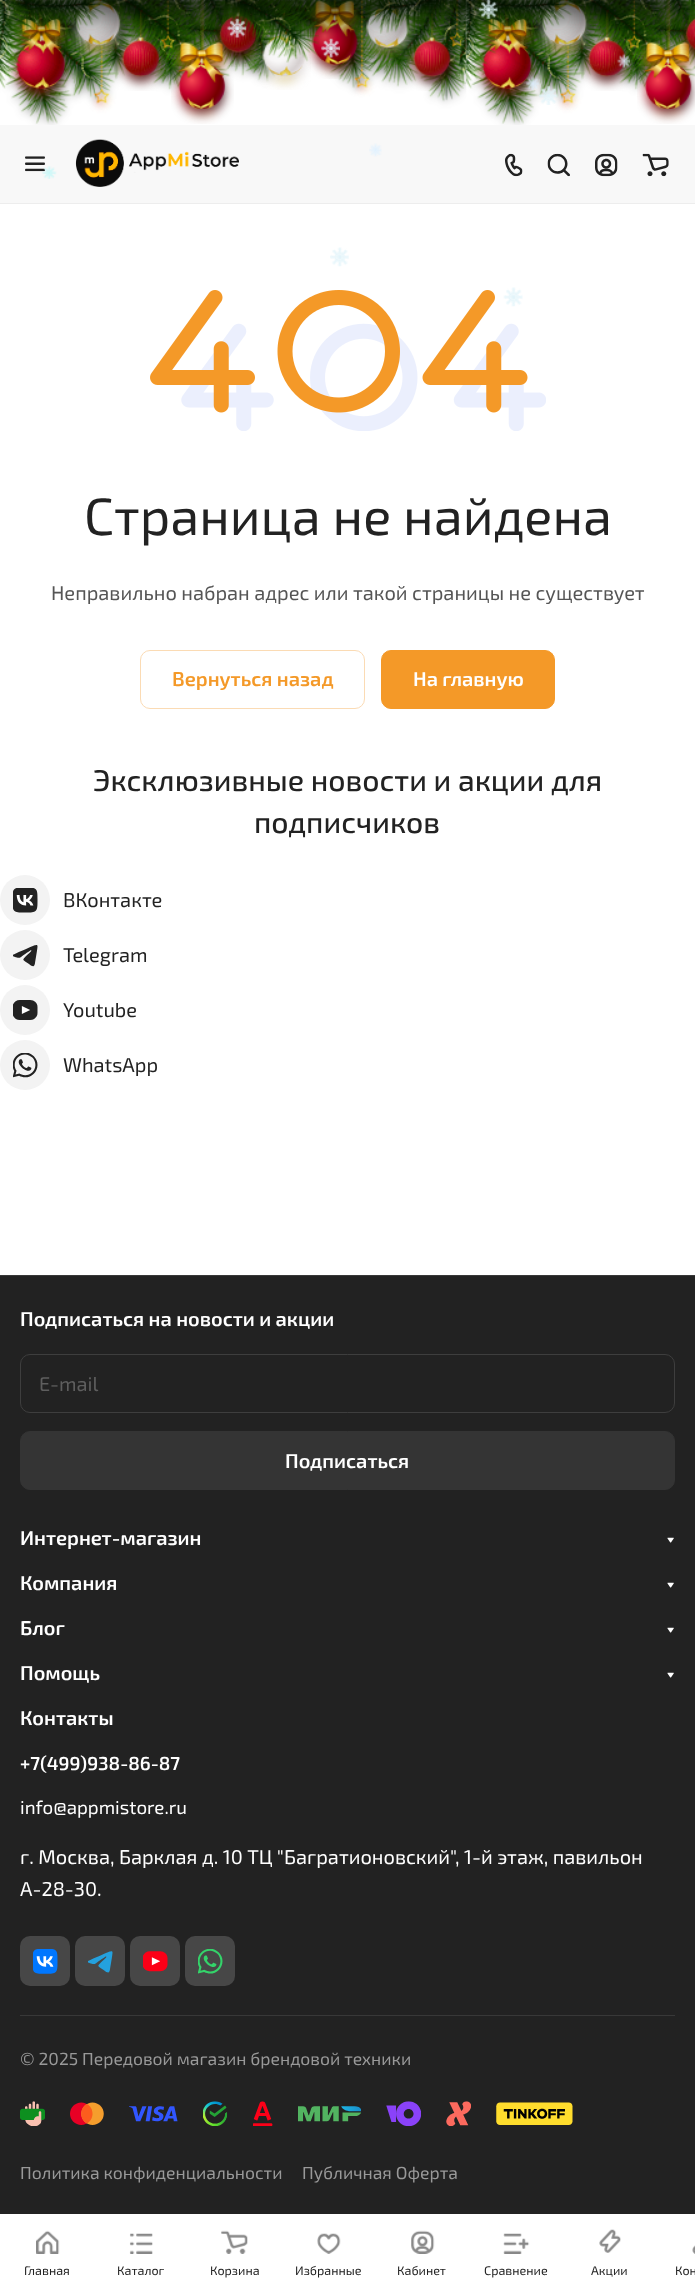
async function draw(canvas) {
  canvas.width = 695;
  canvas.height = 2289;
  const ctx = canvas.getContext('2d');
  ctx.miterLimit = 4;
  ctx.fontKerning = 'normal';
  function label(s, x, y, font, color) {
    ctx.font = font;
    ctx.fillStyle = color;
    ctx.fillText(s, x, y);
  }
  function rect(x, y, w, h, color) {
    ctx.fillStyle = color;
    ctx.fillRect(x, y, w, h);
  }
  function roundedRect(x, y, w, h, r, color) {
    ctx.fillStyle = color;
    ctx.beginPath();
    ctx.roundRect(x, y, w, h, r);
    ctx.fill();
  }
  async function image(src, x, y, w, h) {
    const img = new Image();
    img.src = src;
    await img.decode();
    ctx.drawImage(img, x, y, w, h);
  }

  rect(0, 0, 695, 2289, '#fff');
  await image('assets/img11.png', 0, 0, 695, 125);
  await image('assets/img13.png', 8, 0, 65, 102);
  await image('assets/img12.png', 0, 0, 32, 89);
  await image('assets/img15.png', 67, 0, 62, 58);
  await image('assets/img14.png', 31, 0, 76, 34);
  await image('assets/img16.png', 171, 0, 63, 124);
  await image('assets/img17.png', 212, 0, 51, 67);
  await image('assets/img23.png', 255, 7, 56, 83);
  await image('assets/img18.png', 221, 0, 36, 39);
  await image('assets/img20.png', 304, 0, 61, 79);
  await image('assets/img19.png', 256, 0, 63, 63);
  await image('assets/img21.png', 359, 0, 57, 61);
  await image('assets/img22.png', 114, 11, 52, 80);
  await image('assets/img26.png', 406, 12, 52, 79);
  await image('assets/img24.png', 361, 0, 98, 35);
  await image('assets/img25.png', 458, 0, 9, 86);
  await image('assets/img28.png', 474, 0, 65, 102);
  await image('assets/img27.png', 466, 0, 32, 89);
  await image('assets/img30.png', 534, 0, 61, 58);
  await image('assets/img29.png', 497, 0, 77, 33);
  await image('assets/img31.png', 637, 0, 58, 124);
  await image('assets/img32.png', 581, 11, 51, 80);
  await image('assets/img34.png', 678, 15, 17, 50);
  await image('assets/img33.png', 687, 0, 8, 26);
  ctx.fillStyle = '#000000bf';
  ctx.filter = 'blur(19px)';
  ctx.beginPath();
  ctx.rect(0, -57, 695, 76);
  ctx.fill();
  ctx.filter = 'none';
  await image('assets/img1.png', 478, 0, 20, 19);
  await image('assets/img2.png', 227, 18, 20, 20);
  await image('assets/img3.png', 321, 38, 19, 20);
  await image('assets/img4.png', 617, 53, 13, 15);
  await image('assets/img5.png', 526, 76, 13, 14);
  await image('assets/img6.png', 539, 86, 19, 19);
  rect(0, 125, 695, 78, '#f8f8f8');
  await image('assets/img7.png', 369, 143, 13, 14);
  await image('assets/img35.png', 25, 156, 20, 16);
  await image('assets/img8.png', 42, 166, 15, 13);
  await image('assets/img9.png', 330, 247, 19, 20);
  await image('assets/img41.png', 150, 290, 396, 141);
  await image('assets/img10.png', 503, 287, 20, 20);
  rect(0, 203, 695, 1, '#ededed');
  await image('assets/img36.png', 75, 139, 164, 48);
  await image('assets/img37.png', 505, 153, 18, 24);
  await image('assets/img38.png', 547, 153, 23, 24);
  await image('assets/img39.png', 595, 153, 23, 24);
  await image('assets/img40.png', 642, 153, 27, 24);
  label('Страница не найдена', 84, 535, '52.5px "Exo 2"', '#222');
  label('Неправильно набран адрес или такой страницы не существует', 51, 600, '20px "Exo 2"', '#555');
  ctx.beginPath();
  ctx.roundRect(140.5, 650.5, 224, 58, 9.5);
  ctx.strokeStyle = '#fbdbb4';
  ctx.stroke();
  label('Вернуться назад', 172, 686, '600 20px "Exo 2"', '#f49928');
  ctx.beginPath();
  ctx.roundRect(381.5, 650.5, 173, 58, 9.5);
  ctx.fill();
  ctx.strokeStyle = '#f49928';
  ctx.stroke();
  label('На главную', 413, 686, '600 20px "Exo 2"', '#fff');
  label('Эксклюзивные новости и акции для', 93, 791, '500 30px "Exo 2"', '#222');
  label('подписчиков', 254, 833, '500 30px "Exo 2"', '#222');
  ctx.fillStyle = '#f3f3f3';
  ctx.beginPath();
  ctx.arc(25, 900, 25, 0, 2 * Math.PI);
  ctx.fill();
  await image('assets/img42.png', 13, 888, 25, 25);
  label('ВКонтакте', 63, 907, '20px "Exo 2"', '#222');
  ctx.fillStyle = '#f3f3f3';
  ctx.beginPath();
  ctx.arc(25, 955, 25, 0, 2 * Math.PI);
  ctx.fill();
  await image('assets/img43.png', 13, 945, 25, 22);
  label('Telegram', 63, 962, '20px "Exo 2"', '#222');
  ctx.fillStyle = '#f3f3f3';
  ctx.beginPath();
  ctx.arc(25, 1010, 25, 0, 2 * Math.PI);
  ctx.fill();
  await image('assets/img44.png', 13, 1000, 25, 20);
  label('Youtube', 63, 1017, '20px "Exo 2"', '#222');
  ctx.fillStyle = '#f3f3f3';
  ctx.beginPath();
  ctx.arc(25, 1065, 25, 0, 2 * Math.PI);
  ctx.fill();
  await image('assets/img45.png', 13, 1053, 25, 25);
  label('WhatsApp', 63, 1072, '20px "Exo 2"', '#222');
  rect(0, 1276, 695, 938, '#222');
  rect(0, 1275, 695, 1, '#383838');
  label('Подписаться на новости и акции', 20, 1326, '600 20px "Exo 2"', '#fff');
  ctx.beginPath();
  ctx.roundRect(20.5, 1354.5, 654, 58, 9.5);
  ctx.strokeStyle = '#3e3e3e';
  ctx.stroke();
  label('E-mail', 39, 1391, '20px "Exo 2"', '#5e5e5e');
  ctx.fillStyle = '#343434';
  ctx.beginPath();
  ctx.roundRect(20.5, 1431.5, 654, 58, 9.5);
  ctx.fill();
  ctx.strokeStyle = '#343434';
  ctx.stroke();
  label('Подписаться', 285, 1468, '600 20px "Exo 2"', '#fff');
  label('Интернет-магазин', 20, 1545, '600 20px "Exo 2"', '#fff');
  await image('assets/img46.png', 667, 1537, 7, 6);
  label('Компания', 20, 1590, '600 20px "Exo 2"', '#fff');
  await image('assets/img46.png', 667, 1582, 7, 6);
  label('Блог', 20, 1635, '600 20px "Exo 2"', '#fff');
  await image('assets/img46.png', 667, 1627, 7, 6);
  label('Помощь', 20, 1680, '600 20px "Exo 2"', '#fff');
  await image('assets/img46.png', 667, 1672, 7, 6);
  label('Контакты', 20, 1725, '600 20px "Exo 2"', '#fff');
  label('+7(499)938-86-87', 20, 1770, '600 18.75px "Exo 2"', '#fff');
  label('info@appmistore.ru', 20, 1814, '18.75px "Exo 2"', '#fff');
  label('г. Москва, Барклая д. 10 ТЦ "Багратионовский", 1-й этаж, павильон', 20, 1864, '20px "Exo 2"', '#fff');
  label('А-28-30.', 20, 1896, '20px "Exo 2"', '#fff');
  roundedRect(20, 1936, 50, 50, 10, '#474747');
  await image('assets/img47.png', 33, 1949, 25, 25);
  roundedRect(75, 1936, 50, 50, 10, '#474747');
  await image('assets/img48.png', 88, 1951, 25, 22);
  roundedRect(130, 1936, 50, 50, 10, '#474747');
  await image('assets/img49.png', 143, 1951, 25, 21);
  roundedRect(185, 1936, 50, 50, 10, '#474747');
  await image('assets/img50.png', 198, 1949, 25, 25);
  rect(20, 2015, 655, 1, '#383838');
  label('© 2025 Передовой магазин брендовой техники', 20, 2065, '17.5px "Exo 2"', '#999');
  await image('assets/img51.png', 20, 2101, 25, 25);
  await image('assets/img52.png', 70, 2102, 34, 23);
  await image('assets/img53.png', 129, 2106, 49, 16);
  await image('assets/img54.png', 203, 2101, 25, 25);
  await image('assets/img55.png', 253, 2101, 20, 25);
  await image('assets/img56.png', 298, 2106, 63, 16);
  await image('assets/img57.png', 386, 2101, 35, 25);
  await image('assets/img58.png', 446, 2101, 25, 25);
  await image('assets/img59.png', 496, 2102, 77, 23);
  label('Политика конфиденциальности', 20, 2179, '17.5px "Exo 2"', '#999');
  label('Публичная Оферта', 302, 2179, '17.5px "Exo 2"', '#999');
  await image('assets/img60.png', 36, 2230, 24, 24);
  label('Главная', 24, 2275, '12.5px "Exo 2"', '#222');
  await image('assets/img61.png', 129, 2233, 24, 21);
  label('Каталог', 117, 2275, '12.5px "Exo 2"', '#222');
  await image('assets/img62.png', 221, 2230, 27, 24);
  label('Корзина', 210, 2275, '12.5px "Exo 2"', '#222');
  await image('assets/img63.png', 317, 2233, 24, 21);
  label('Избранные', 295, 2275, '12.5px "Exo 2"', '#222');
  await image('assets/img64.png', 411, 2230, 24, 24);
  label('Кабинет', 397, 2275, '12.5px "Exo 2"', '#222');
  await image('assets/img65.png', 503, 2233, 27, 21);
  label('Сравнение', 484, 2275, '12.5px "Exo 2"', '#222');
  await image('assets/img66.png', 599, 2229, 22, 24);
  label('Акции', 591, 2275, '12.5px "Exo 2"', '#222');
  await image('assets/img67.png', 692, 2245, 3, 9);
  label('Кон', 675, 2275, '12.5px "Exo 2"', '#222');
}

draw(document.querySelector('canvas'));
